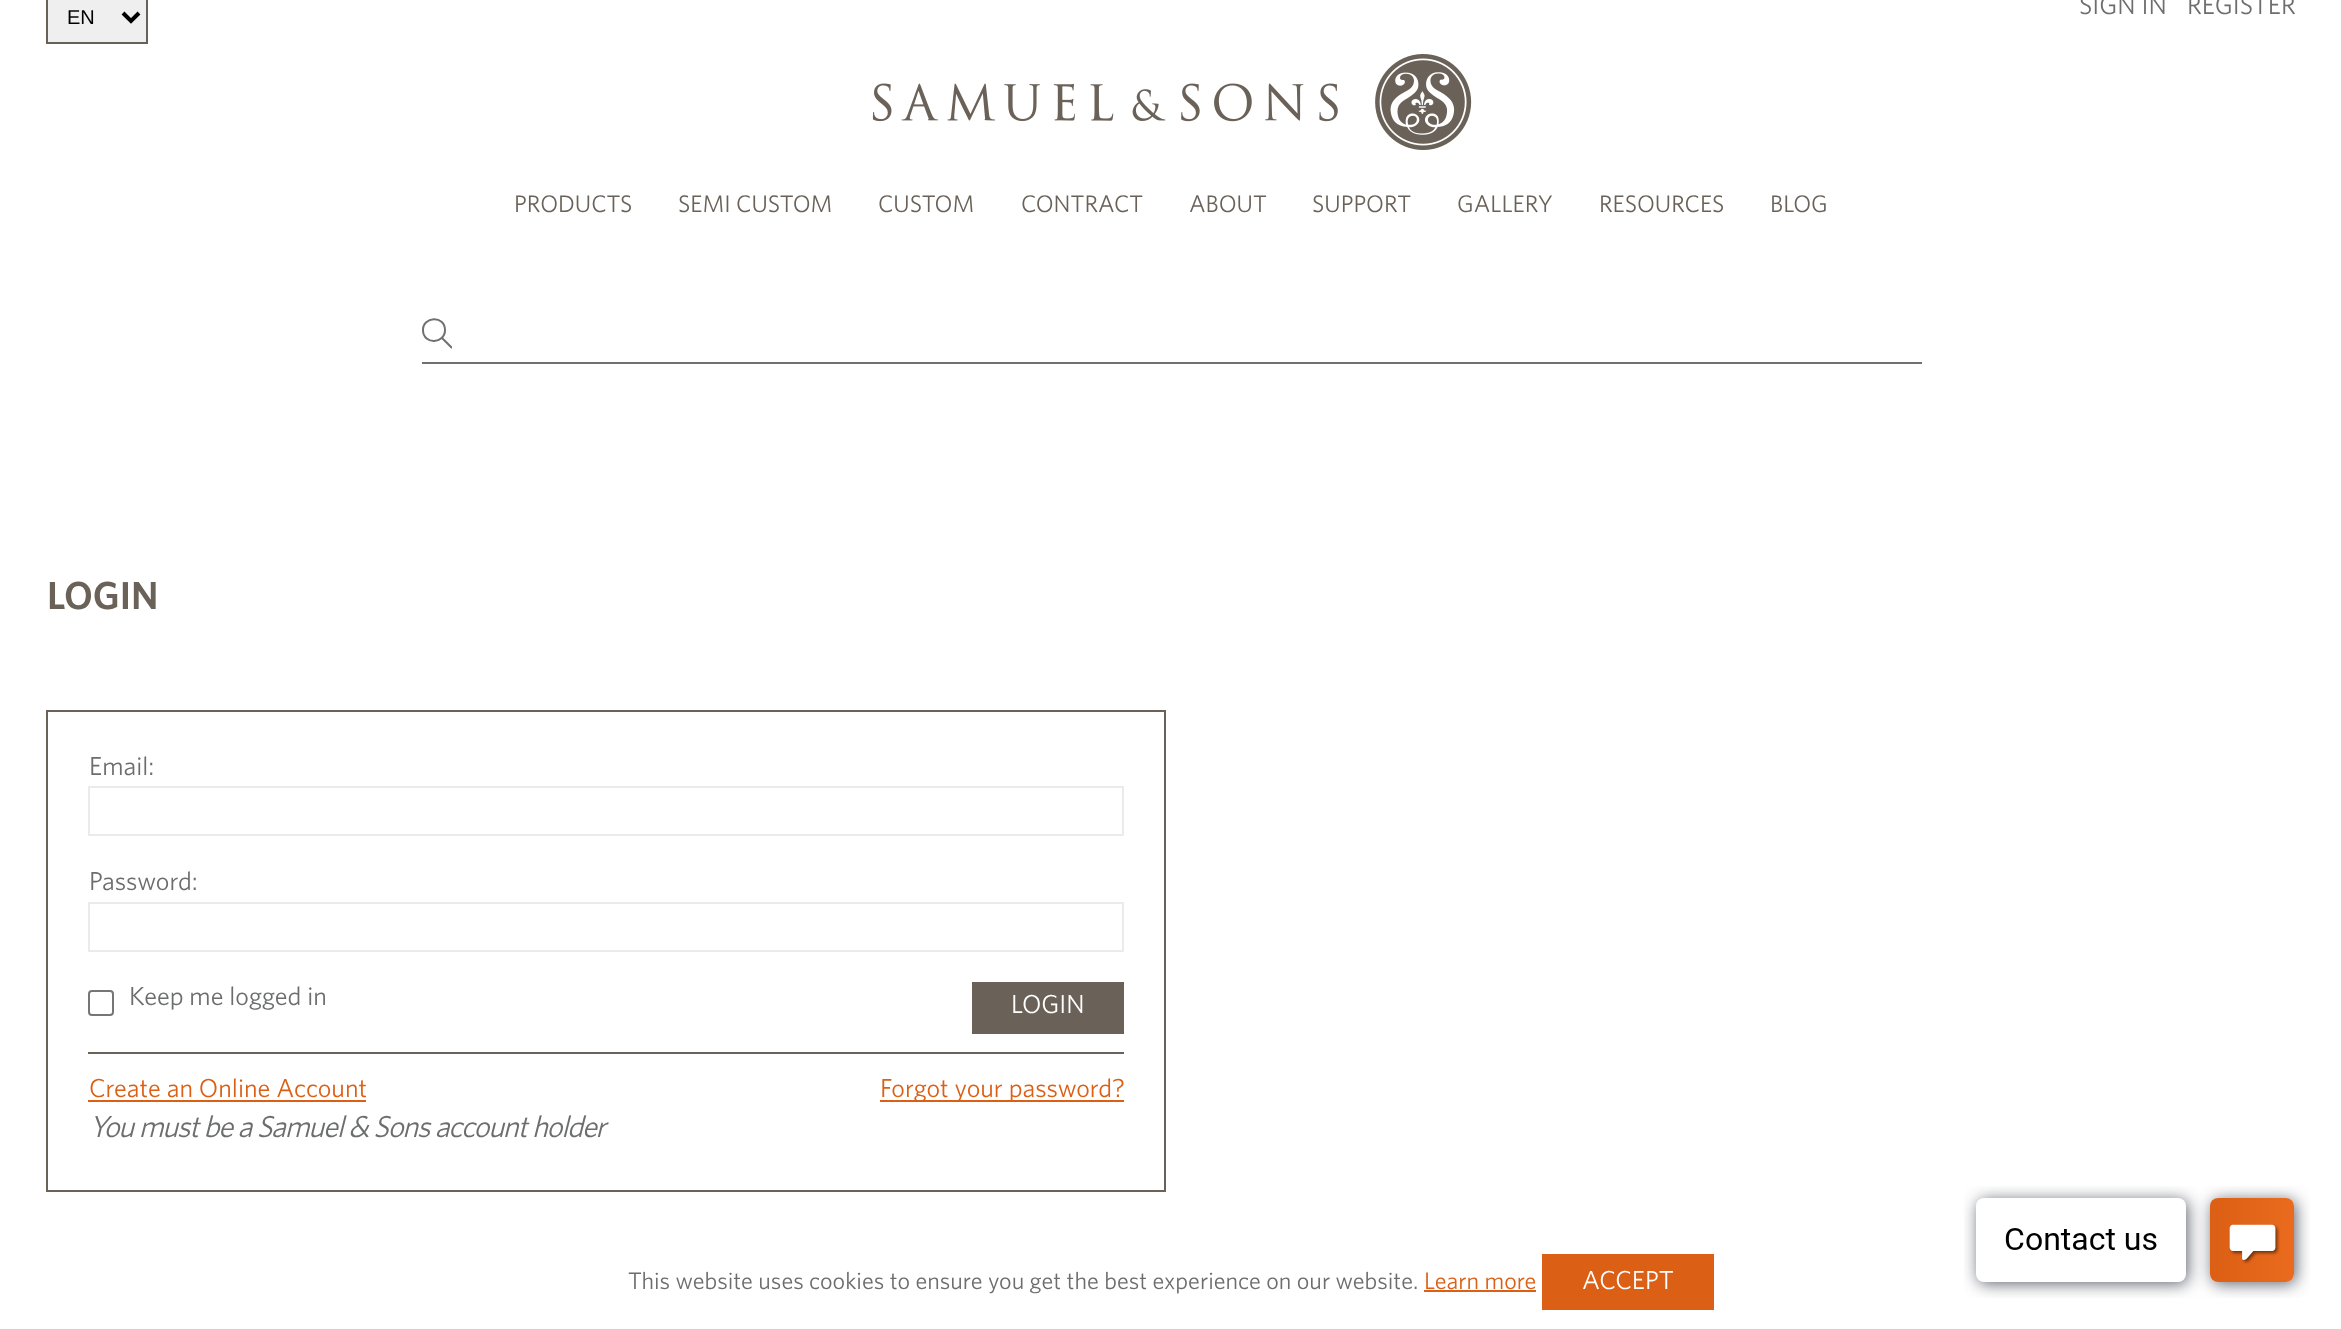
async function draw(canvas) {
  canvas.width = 2341;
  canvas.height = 1329;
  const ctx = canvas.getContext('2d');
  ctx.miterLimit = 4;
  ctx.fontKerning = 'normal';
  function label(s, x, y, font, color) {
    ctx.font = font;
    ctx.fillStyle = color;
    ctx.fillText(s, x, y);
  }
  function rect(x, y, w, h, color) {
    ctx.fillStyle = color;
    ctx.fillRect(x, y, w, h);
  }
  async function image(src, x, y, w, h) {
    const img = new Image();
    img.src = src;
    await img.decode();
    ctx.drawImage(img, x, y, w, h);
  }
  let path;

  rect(0, 0, 2341, 1329, '#fff');
  ctx.fillStyle = '#efefef';
  ctx.beginPath();
  ctx.rect(47, -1, 100, 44);
  ctx.fill();
  ctx.strokeStyle = '#696057';
  ctx.lineWidth = 2;
  ctx.stroke();
  path = new Path2D('M123 13L131 21L139 13');
  ctx.strokeStyle = '#000';
  ctx.lineWidth = 4;
  ctx.stroke(path);
  label('EN', 67, 24, '20px Liberation Sans', '#000');
  await image('assets/img1.png', 872, 54, 600, 96);
  label('SIGN IN', 2079, 14, '26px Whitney', '#6c6d6d');
  label('REGISTER', 2187, 14, '26px Whitney', '#6c6d6d');
  label('PRODUCTS', 514, 212, '24px Whitney', '#6a6259');
  label('SEMI CUSTOM', 678, 212, '24px Whitney', '#6a6259');
  label('CUSTOM', 878, 212, '24px Whitney', '#6a6259');
  label('CONTRACT', 1021, 212, '24px Whitney', '#6a6259');
  label('ABOUT', 1189, 212, '24px Whitney', '#6a6259');
  label('SUPPORT', 1312, 212, '24px Whitney', '#6a6259');
  label('GALLERY', 1457, 212, '24px Whitney', '#6a6259');
  label('RESOURCES', 1599, 212, '24px Whitney', '#6a6259');
  label('BLOG', 1770, 212, '24px Whitney', '#6a6259');
  path = new Path2D('M445 330C445 344 423.5 345 423 330.5C422.5 316 445 315 445 330Z');
  ctx.strokeStyle = '#707070';
  ctx.lineWidth = 2;
  ctx.lineCap = 'round';
  ctx.lineJoin = 'round';
  ctx.stroke(path);
  ctx.save();
  ctx.beginPath();
  ctx.rect(422, 318, 30, 32);
  ctx.clip();
  path = new Path2D('M451.5 347.5L442 338');
  ctx.stroke(path);
  ctx.restore();
  rect(422, 362, 1500, 2, '#707070');
  label('LOGIN', 47, 609, '600 39px Whitney', '#6a6259');
  ctx.strokeStyle = '#6a6259';
  ctx.lineJoin = 'miter';
  ctx.strokeRect(47, 711, 1118, 480);
  label('Email:', 89, 775, '26px Whitney', '#6c6d6d');
  ctx.strokeStyle = '#ebebeb';
  ctx.strokeRect(89, 787, 1034, 48);
  label('Password:', 89, 890, '26px Whitney', '#6c6d6d');
  ctx.strokeRect(89, 903, 1034, 48);
  ctx.beginPath();
  ctx.roundRect(89, 991, 24, 24, 3);
  ctx.strokeStyle = '#767676';
  ctx.stroke();
  label('Keep me logged in', 129, 1005, '26px Whitney', '#6c6d6d');
  rect(972, 982, 152, 52, '#6a6259');
  label('LOGIN', 1011, 1013, '26px Whitney', '#fff');
  rect(88, 1052, 1036, 2, '#6a6259');
  label('Create an Online Account', 89, 1097, '26px Whitney', '#db5f14');
  rect(88, 1100, 278, 2, '#db5f14');
  rect(880, 1100, 244, 2, '#db5f14');
  label('Forgot your password?', 880, 1097, '26px Whitney', '#db5f14');
  ctx.letterSpacing = '-1.2px';
  label('You must be a Samuel & Sons account holder', 89, 1137, 'italic 30.3px Whitney', '#6c6d6d');
  ctx.letterSpacing = '0px';
  label('This website uses cookies to ensure you get the best experience on our website.', 628, 1289, '24px Whitney', '#6c6d6d');
  label('Learn more', 1424, 1289, '24px Whitney', '#db5f14');
  rect(1424, 1290, 112, 2, '#db5f14');
  rect(1542, 1254, 172, 56, '#db5f14');
  label('ACCEPT', 1582, 1289, '26px Whitney', '#fff');
  await image('assets/img2.png', 1964, 1186, 346, 112);
}

draw(document.querySelector('canvas'));
